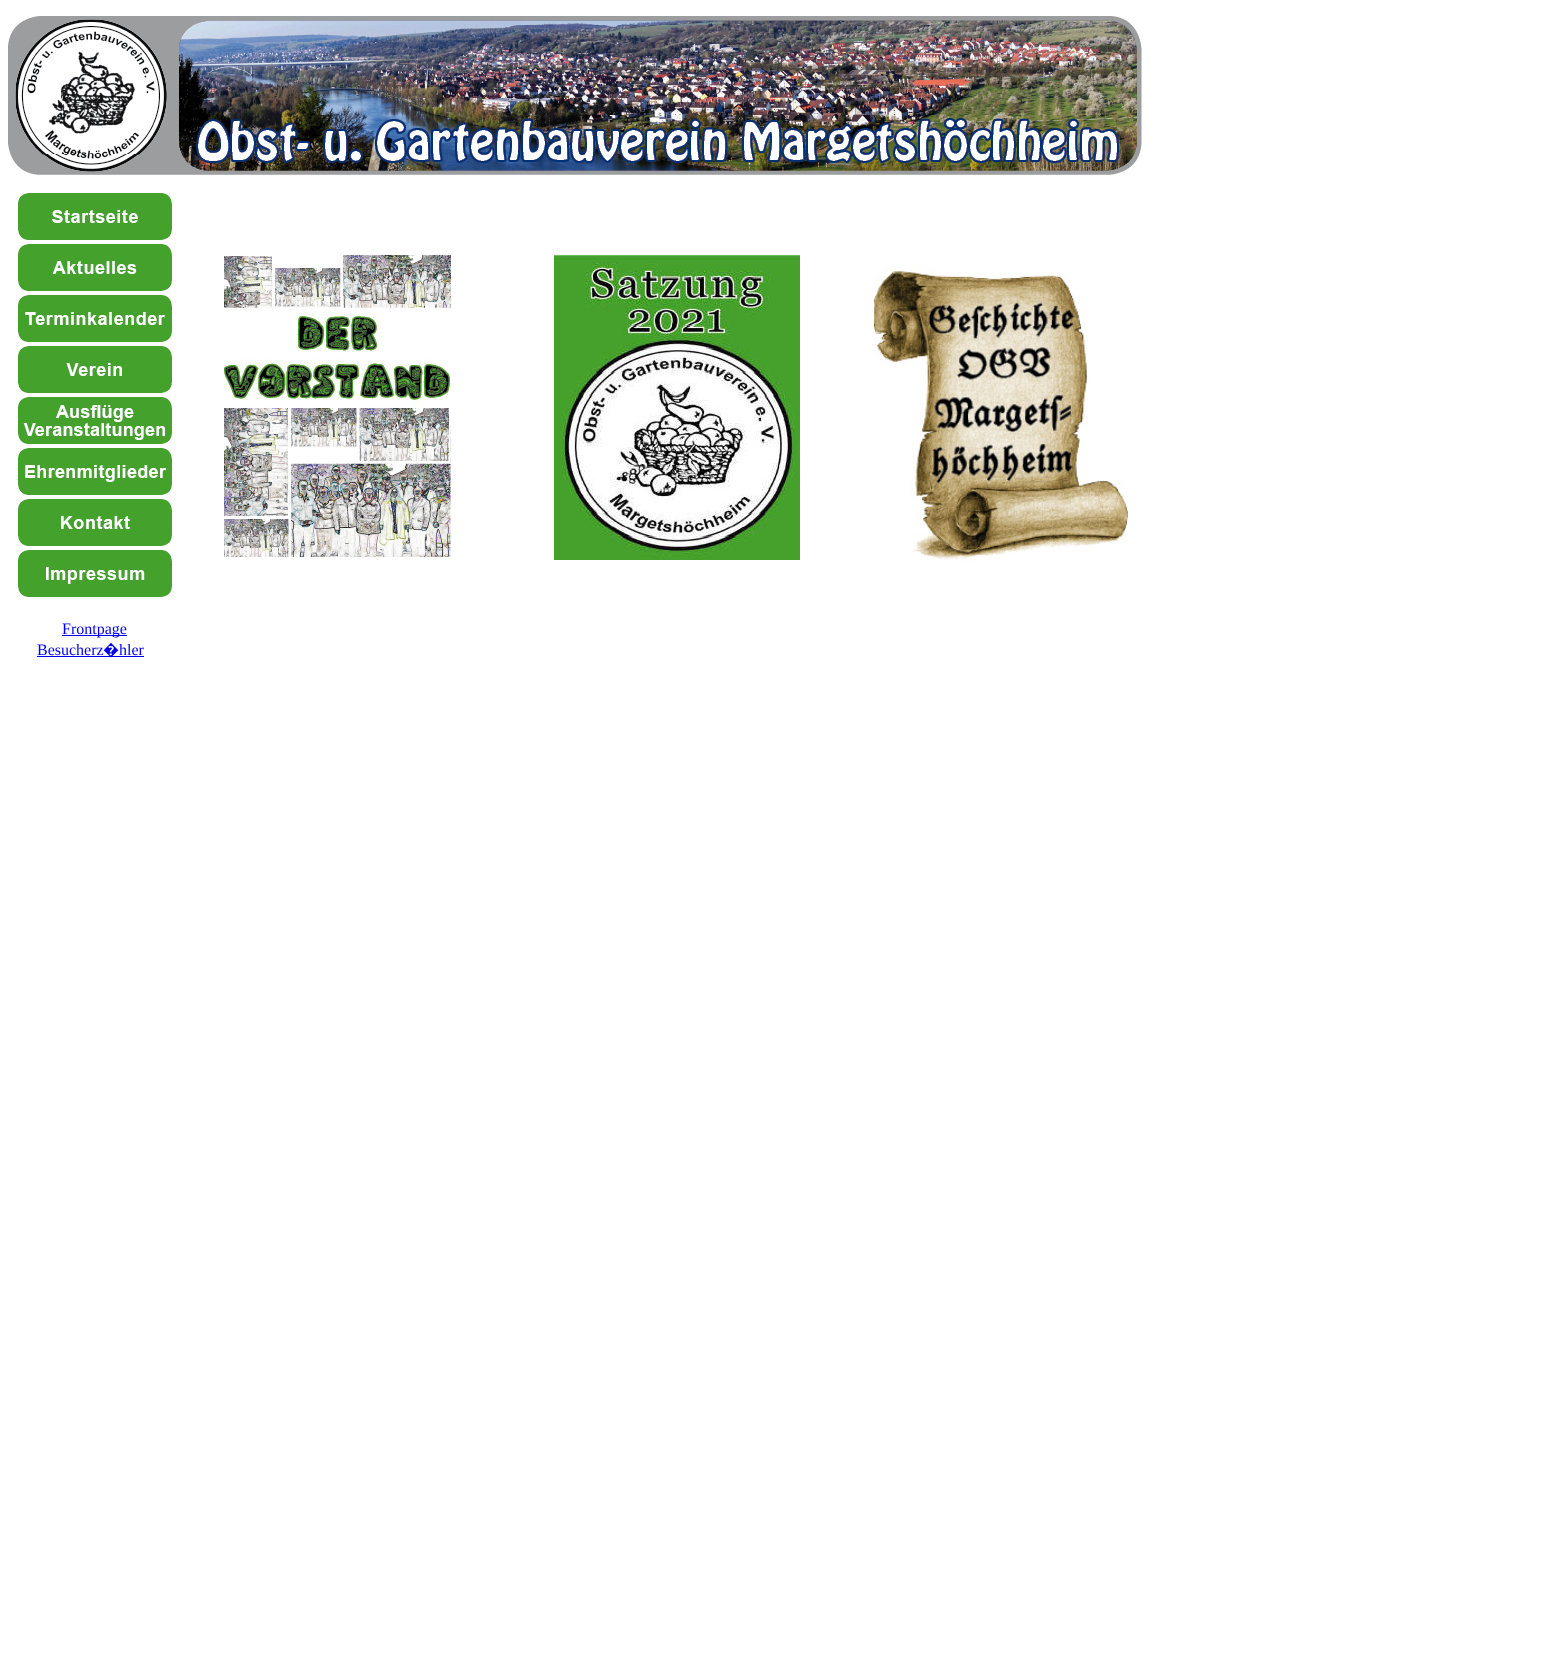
async function draw(canvas) {
  canvas.width = 1549;
  canvas.height = 1654;
  const ctx = canvas.getContext('2d');
  ctx.miterLimit = 4;
  ctx.fontKerning = 'normal';
  function label(s, x, y, font, color) {
    ctx.font = font;
    ctx.fillStyle = color;
    ctx.fillText(s, x, y);
  }
  function rect(x, y, w, h, color) {
    ctx.fillStyle = color;
    ctx.fillRect(x, y, w, h);
  }
  async function image(src, x, y, w, h) {
    const img = new Image();
    img.src = src;
    await img.decode();
    ctx.drawImage(img, x, y, w, h);
  }

  rect(0, 0, 1549, 1654, '#fff');
  await image('assets/img1.png', 8, 16, 1134, 159);
  await image('assets/img2.png', 18, 193, 154, 47);
  await image('assets/img3.png', 18, 244, 154, 47);
  await image('assets/img4.png', 18, 295, 154, 47);
  await image('assets/img5.png', 18, 346, 154, 47);
  await image('assets/img6.png', 18, 397, 154, 47);
  await image('assets/img7.png', 18, 448, 154, 47);
  await image('assets/img8.png', 18, 499, 154, 47);
  await image('assets/img9.png', 18, 550, 154, 47);
  await image('assets/img10.png', 224, 255, 227, 302);
  await image('assets/img11.png', 554, 255, 246, 305);
  await image('assets/img12.png', 874, 267, 254, 294);
  rect(62, 635, 65, 1, '#00e');
  label('Frontpage', 62, 634, '16px Liberation Serif', '#00e');
  label('Besucherz', 37, 655, '16px Liberation Serif', '#00e');
  rect(37, 656, 107, 1, '#00e');
  label('�', 103, 655, '16px Noto Sans', '#00e');
  label('hler', 119, 655, '16px Liberation Serif', '#00e');
}

draw(document.querySelector('canvas'));
